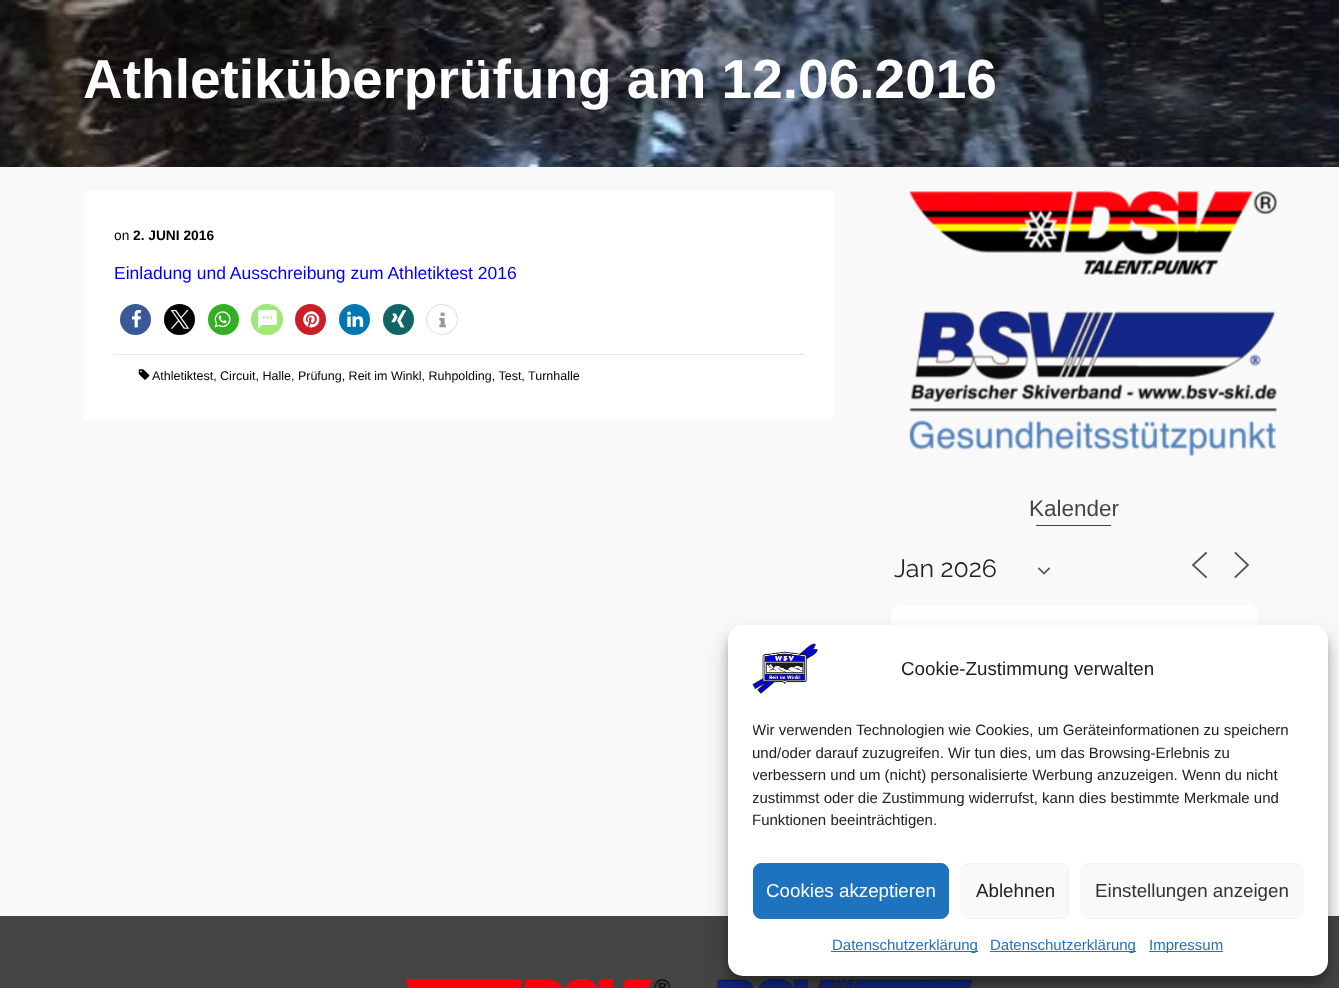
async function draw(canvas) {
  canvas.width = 1339;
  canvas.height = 988;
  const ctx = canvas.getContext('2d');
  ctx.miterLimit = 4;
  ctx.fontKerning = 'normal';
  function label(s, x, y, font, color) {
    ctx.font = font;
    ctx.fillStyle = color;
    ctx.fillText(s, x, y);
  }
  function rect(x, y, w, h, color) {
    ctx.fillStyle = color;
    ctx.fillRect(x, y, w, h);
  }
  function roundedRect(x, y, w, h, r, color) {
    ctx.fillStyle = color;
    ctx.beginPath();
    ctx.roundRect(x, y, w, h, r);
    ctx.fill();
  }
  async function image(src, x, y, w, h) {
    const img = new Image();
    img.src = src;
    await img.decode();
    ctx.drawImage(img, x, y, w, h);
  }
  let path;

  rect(0, 0, 1339, 988, '#f9f9f9');
  await image('assets/img1.png', 0, 0, 1339, 167);
  label('Athletiküberprüfung am 12.06.2016', 83, 98, 'bold 55px Liberation Sans', '#fff');
  ctx.beginPath();
  ctx.roundRect(83, 191, 752, 229, [0, 0, 6, 6]);
  ctx.fill();
  label('on', 114, 240, '13.75px Liberation Sans', '#000');
  label('2. JUNI 2016', 133, 240, 'bold 13.75px Liberation Sans', '#000');
  label('Einladung und Ausschreibung zum Athletiktest 2016', 114, 279, '17.5px Liberation Sans', '#0000f0');
  ctx.fillStyle = '#3b5998';
  ctx.beginPath();
  ctx.arc(135.5, 319.5, 15.5, 0, 2 * Math.PI);
  ctx.fill();
  await image('assets/img2.png', 131, 309, 10, 19);
  ctx.fillStyle = '#000';
  ctx.beginPath();
  ctx.arc(179.5, 319.5, 15.5, 0, 2 * Math.PI);
  ctx.fill();
  await image('assets/img3.png', 170, 310, 20, 19);
  ctx.fillStyle = '#34af23';
  ctx.beginPath();
  ctx.arc(223.5, 319.5, 15.5, 0, 2 * Math.PI);
  ctx.fill();
  await image('assets/img4.png', 214, 311, 17, 17);
  roundedRect(251, 304, 32, 31, 15.5, '#a1e877');
  await image('assets/img5.png', 258, 310, 19, 19);
  ctx.fillStyle = '#cb2027';
  ctx.beginPath();
  ctx.arc(310.5, 319.5, 15.5, 0, 2 * Math.PI);
  ctx.fill();
  await image('assets/img6.png', 303, 311, 17, 17);
  ctx.fillStyle = '#0077b5';
  ctx.beginPath();
  ctx.arc(354.5, 319.5, 15.5, 0, 2 * Math.PI);
  ctx.fill();
  await image('assets/img7.png', 347, 311, 17, 16);
  ctx.fillStyle = '#126567';
  ctx.beginPath();
  ctx.arc(398.5, 319.5, 15.5, 0, 2 * Math.PI);
  ctx.fill();
  await image('assets/img8.png', 391, 310, 16, 18);
  ctx.beginPath();
  ctx.roundRect(426.5, 304.5, 31, 30, 15);
  ctx.strokeStyle = '#ddd';
  ctx.stroke();
  await image('assets/img9.png', 439, 312, 7, 16);
  rect(114, 354, 690, 1, '#e6e6e6');
  await image('assets/img10.png', 138, 369, 12, 11);
  label('Athletiktest, Circuit, Halle, Prüfung, Reit im Winkl, Ruhpolding, Test, Turnhalle', 152, 380, '12.5px Liberation Sans', '#000');
  await image('assets/img11.png', 909, 191, 368, 84);
  await image('assets/img12.png', 909, 311, 368, 145);
  label('Kalender', 1029, 516, '22.5px Liberation Sans', '#444');
  rect(1036, 525, 75, 1, '#444');
  path = new Path2D('M1039 568.5L1044 573.5L1049 568.5');
  ctx.strokeStyle = '#555';
  ctx.lineWidth = 1.7;
  ctx.lineCap = 'square';
  ctx.stroke(path);
  label('Jan 2026', 894, 577, '25px Raleway', '#212121');
  path = new Path2D('M1206 577L1193 565L1206 553M1235.5 577L1248 565L1235.5 553');
  ctx.lineWidth = 1.8;
  ctx.stroke(path);
  ctx.fillStyle = '#fff';
  ctx.beginPath();
  ctx.roundRect(891, 605, 367, 50, [10, 10, 0, 0]);
  ctx.fill();
  rect(0, 916, 1339, 72, '#444');
  await image('assets/img13.png', 404, 979, 267, 9);
  await image('assets/img14.png', 716, 979, 257, 9);
  ctx.fillStyle = '#0000003b';
  ctx.filter = 'blur(4px)';
  ctx.beginPath();
  ctx.roundRect(728, 633, 600, 351, 15);
  ctx.fill();
  ctx.filter = 'none';
  ctx.fillStyle = '#00000030';
  ctx.filter = 'blur(12.5px)';
  ctx.beginPath();
  ctx.roundRect(728, 638, 600, 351, 15);
  ctx.fill();
  ctx.filter = 'none';
  roundedRect(728, 625, 600, 351, 15, '#fff');
  await image('assets/img15.png', 752, 643, 66, 51);
  label('Cookie-Zustimmung verwalten', 901, 675, '18.75px Liberation Sans', '#212121');
  ctx.save();
  ctx.beginPath();
  ctx.rect(753, 719, 550, 119);
  ctx.clip();
  label('Wir verwenden Technologien wie Cookies, um Geräteinformationen zu speichern', 752, 735, '15px Liberation Sans', '#212121');
  label('und/oder darauf zuzugreifen. Wir tun dies, um das Browsing-Erlebnis zu', 752, 758, '15px Liberation Sans', '#212121');
  label('verbessern und um (nicht) personalisierte Werbung anzuzeigen. Wenn du nicht', 752, 780, '15px Liberation Sans', '#212121');
  label('zustimmst oder die Zustimmung widerrufst, kann dies bestimmte Merkmale und', 752, 803, '15px Liberation Sans', '#212121');
  ctx.restore();
  label('Funktionen beeinträchtigen.', 752, 825, '15px Liberation Sans', '#212121');
  ctx.fillStyle = '#1e73be';
  ctx.beginPath();
  ctx.roundRect(753.5, 863.5, 195, 55, 7.5);
  ctx.fill();
  ctx.strokeStyle = '#1e73be';
  ctx.lineWidth = 1;
  ctx.stroke();
  label('Cookies akzeptieren', 766, 897, '18.75px Liberation Sans', '#fff');
  ctx.fillStyle = '#f9f9f9';
  ctx.beginPath();
  ctx.roundRect(961.5, 863.5, 107, 55, 7.5);
  ctx.fill();
  ctx.strokeStyle = '#f2f2f2';
  ctx.stroke();
  label('Ablehnen', 976, 897, '18.75px Liberation Sans', '#212121');
  ctx.fillStyle = '#f9f9f9';
  ctx.beginPath();
  ctx.roundRect(1081.5, 863.5, 221, 55, 7.5);
  ctx.fill();
  ctx.stroke();
  label('Einstellungen anzeigen', 1095, 897, '18.75px Liberation Sans', '#333');
  rect(831, 951, 147, 1, '#1e73be');
  label('Datenschutzerklärung', 832, 950, '15px Liberation Sans', '#1e73be');
  rect(990, 951, 146, 1, '#1e73be');
  label('Datenschutzerklärung', 990, 950, '15px Liberation Sans', '#1e73be');
  rect(1149, 951, 74, 1, '#1e73be');
  label('Impressum', 1149, 950, '15px Liberation Sans', '#1e73be');
}

draw(document.querySelector('canvas'));
